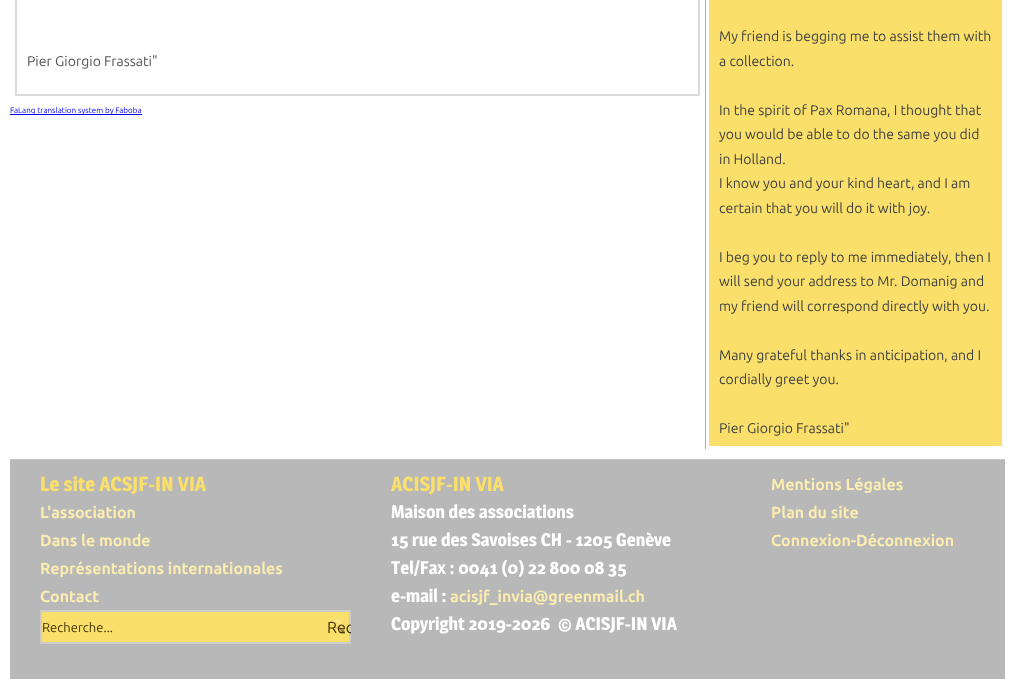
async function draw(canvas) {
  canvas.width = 1015;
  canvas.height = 679;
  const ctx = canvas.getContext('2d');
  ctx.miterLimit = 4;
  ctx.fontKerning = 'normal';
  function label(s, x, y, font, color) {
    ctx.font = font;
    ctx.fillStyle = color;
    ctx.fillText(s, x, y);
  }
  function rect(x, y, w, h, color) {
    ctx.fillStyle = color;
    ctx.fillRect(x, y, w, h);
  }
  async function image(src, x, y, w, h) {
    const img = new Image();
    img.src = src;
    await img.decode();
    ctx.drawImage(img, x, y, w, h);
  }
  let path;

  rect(0, 0, 1015, 679, '#fff');
  ctx.strokeStyle = '#dadada';
  ctx.lineWidth = 2;
  ctx.strokeRect(16, -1, 683, 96);
  label('Pier Giorgio Frassati"', 27, 66, '14px Ubuntu', '#545454');
  rect(10, 114, 132, 1, '#00e');
  label('FaLang translation system by Faboba', 10, 113, '8px Ubuntu', '#00e');
  rect(705, 0, 1, 449, '#ababab');
  rect(709, 0, 293, 446, '#fae06b');
  label('My friend is begging me to assist them with', 719, 41, '14px Ubuntu', '#404040');
  label('a collection.', 719, 66, '14px Ubuntu', '#404040');
  label('In the spirit of Pax Romana, I thought that', 719, 115, '14px Ubuntu', '#404040');
  label('you would be able to do the same you did', 719, 139, '14px Ubuntu', '#404040');
  label('in Holland.', 719, 164, '14px Ubuntu', '#404040');
  label('I know you and your kind heart, and I am', 719, 188, '14px Ubuntu', '#404040');
  label('certain that you will do it with joy.', 719, 213, '14px Ubuntu', '#404040');
  label('I beg you to reply to me immediately, then I', 719, 262, '14px Ubuntu', '#404040');
  label('will send your address to Mr. Domanig and', 719, 286, '14px Ubuntu', '#404040');
  label('my friend will correspond directly with you.', 719, 311, '14px Ubuntu', '#404040');
  label('Many grateful thanks in anticipation, and I', 719, 360, '14px Ubuntu', '#404040');
  label('cordially greet you.', 719, 384, '14px Ubuntu', '#404040');
  label('Pier Giorgio Frassati"', 719, 433, '14px Ubuntu', '#404040');
  rect(10, 459, 995, 220, '#b8b8b8');
  path = new Path2D('M10 459.5H1005');
  ctx.strokeStyle = '#ccc';
  ctx.lineWidth = 1;
  ctx.setLineDash([1, 1]);
  ctx.stroke(path);
  label('Le site ACSJF-IN VIA', 40, 491, '600 20px Magra', '#fae06b');
  label('L\'association', 40, 518, 'bold 16px Ubuntu', '#fdeeb0');
  label('Dans le monde', 40, 546, 'bold 16px Ubuntu', '#fdeeb0');
  label('Représentations internationales', 40, 574, 'bold 16px Ubuntu', '#fdeeb0');
  label('Contact', 40, 602, 'bold 16px Ubuntu', '#fdeeb0');
  ctx.fillStyle = '#fae06b';
  ctx.beginPath();
  ctx.rect(41, 611, 309, 32);
  ctx.fill();
  ctx.lineWidth = 2;
  ctx.setLineDash([]);
  ctx.stroke();
  label('Recherche...', 42, 632, '13px Ubuntu', '#413001');
  await image('assets/img1.png', 332, 620, 14, 14);
  ctx.save();
  ctx.beginPath();
  ctx.rect(327, 610, 24, 34);
  ctx.clip();
  label('Rec', 327, 633, '16px Ubuntu', '#413001');
  ctx.restore();
  label('ACISJF-IN VIA', 391, 491, '600 20px Magra', '#fae06b');
  label('Maison des associations', 391, 518, '600 18px Magra', '#fff');
  label('15 rue des Savoises CH - 1205 Genève', 391, 546, '600 18px Magra', '#fff');
  label('Tel/Fax : 0041 (0) 22 800 08 35', 391, 574, '600 18px Magra', '#fff');
  label('e-mail :', 391, 602, '600 18px Magra', '#fff');
  label('acisjf_invia@greenmail.ch', 450, 602, 'bold 16px Ubuntu', '#fdeeb0');
  label('Copyright 2019-2026  © ACISJF-IN VIA', 391, 630, '600 18px Magra', '#fff');
  label('Mentions Légales', 771, 490, 'bold 16px Ubuntu', '#fdeeb0');
  label('Plan du site', 771, 518, 'bold 16px Ubuntu', '#fdeeb0');
  label('Connexion-Déconnexion', 771, 546, 'bold 16px Ubuntu', '#fdeeb0');
}

draw(document.querySelector('canvas'));
